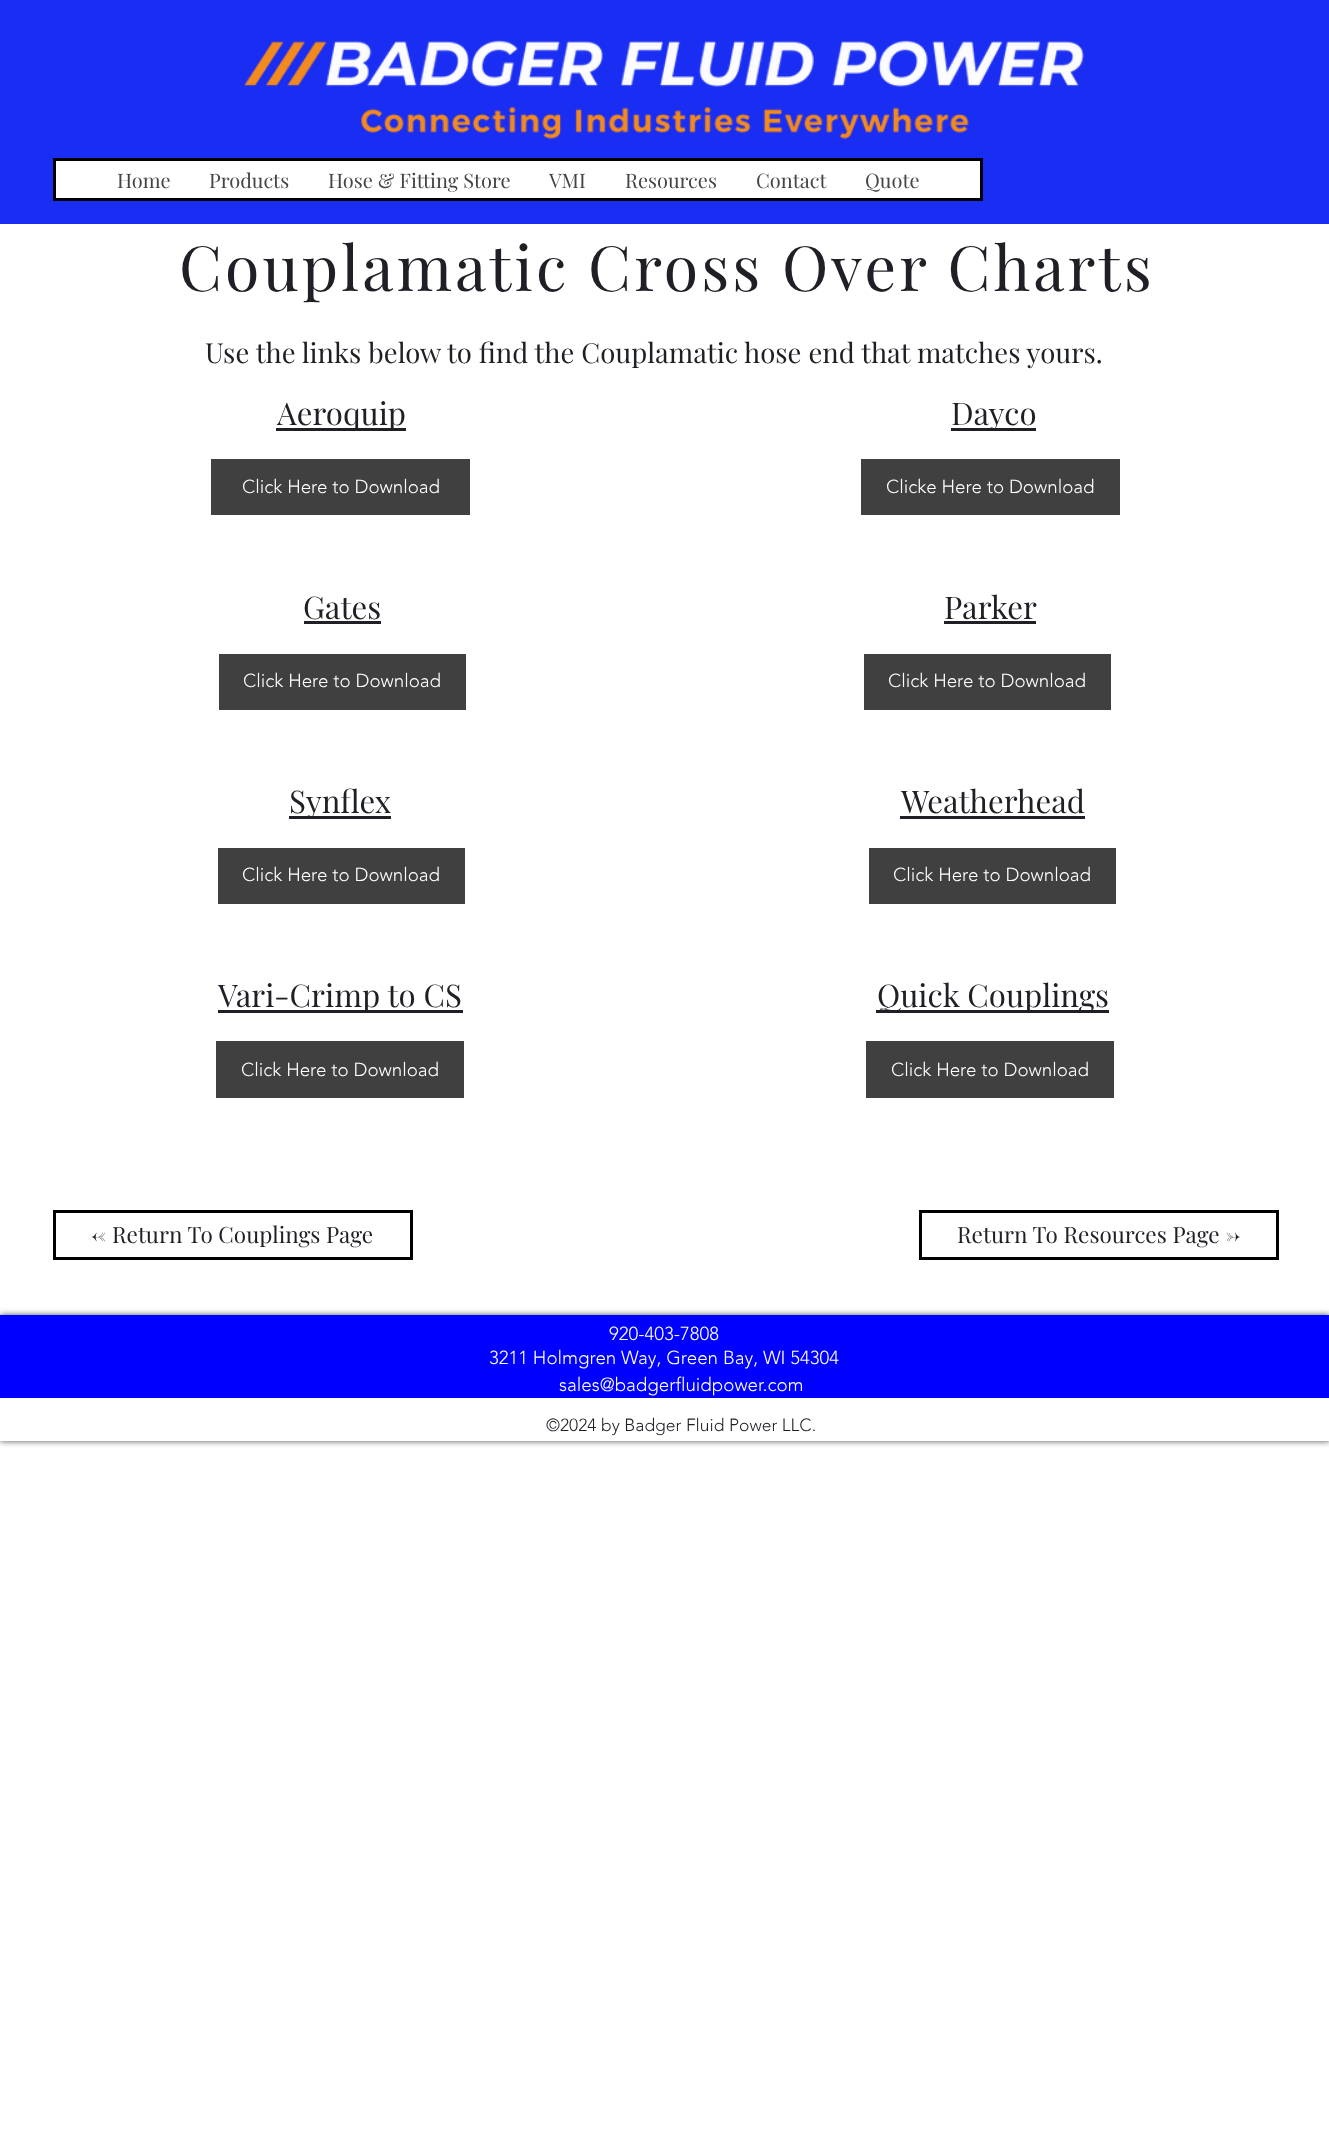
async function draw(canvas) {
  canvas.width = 1329;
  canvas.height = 2155;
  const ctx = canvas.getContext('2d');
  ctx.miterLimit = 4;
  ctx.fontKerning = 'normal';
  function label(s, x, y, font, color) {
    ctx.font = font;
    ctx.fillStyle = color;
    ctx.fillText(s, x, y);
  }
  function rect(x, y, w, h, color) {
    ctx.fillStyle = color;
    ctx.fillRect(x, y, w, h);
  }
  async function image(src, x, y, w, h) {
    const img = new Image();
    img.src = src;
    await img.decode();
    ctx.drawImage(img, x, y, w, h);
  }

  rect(0, 0, 1329, 2155, '#fff');
  rect(0, 0, 1329, 224, '#1a2df3');
  await image('assets/img1.png', 244, 40, 841, 47);
  await image('assets/img2.png', 361, 105, 608, 34);
  ctx.fillStyle = '#fff';
  ctx.beginPath();
  ctx.rect(54.5, 159.5, 927, 40);
  ctx.fill();
  ctx.strokeStyle = '#000';
  ctx.lineWidth = 3;
  ctx.stroke();
  label('Home', 117, 188, '20px Playfair Display', '#444');
  label('Products', 209, 188, '20px Playfair Display', '#444');
  label('Hose & Fitting Store', 328, 188, '20px Playfair Display', '#444');
  label('VMI', 549, 188, '20px Playfair Display', '#444');
  label('Resources', 625, 188, '20px Playfair Display', '#444');
  label('Contact', 756, 188, '20px Playfair Display', '#444');
  label('Quote', 865, 188, '20px Playfair Display', '#444');
  ctx.letterSpacing = '3.1px';
  label('Couplamatic Cross Over Charts', 179, 291, '62.5px Playfair Display', '#1e2025');
  ctx.letterSpacing = '0px';
  label('Use the links below to find the Couplamatic hose end that matches yours.', 205, 363, '27.5px Playfair Display', '#1e2025');
  rect(276, 428, 130, 3, '#1e2025');
  label('Aeroquip', 277, 425, '31.25px Playfair Display', '#1e2025');
  rect(211, 459, 259, 56, '#404040');
  label('Click Here to Download', 242, 493, '300 18.75px "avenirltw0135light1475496"', '#fff');
  rect(951, 428, 85, 3, '#1e2025');
  label('Dayco', 951, 425, '31.25px Playfair Display', '#1e2025');
  rect(861, 459, 259, 56, '#404040');
  label('Clicke Here to Download', 886, 493, '300 18.75px "avenirltw0135light1475496"', '#fff');
  label('Gates', 303, 619, '31.25px Playfair Display', '#1e2025');
  rect(304, 621, 77, 3, '#1e2025');
  rect(219, 654, 247, 56, '#404040');
  label('Click Here to Download', 243, 687, '300 18.75px "avenirltw0135light1475496"', '#fff');
  label('Parker', 944, 619, '31.25px Playfair Display', '#1e2025');
  rect(944, 621, 92, 3, '#1e2025');
  rect(864, 654, 247, 56, '#404040');
  label('Click Here to Download', 888, 687, '300 18.75px "avenirltw0135light1475496"', '#fff');
  rect(289, 816, 102, 3, '#1e2025');
  label('Synflex', 289, 813, '31.25px Playfair Display', '#1e2025');
  rect(218, 848, 247, 56, '#404040');
  label('Click Here to Download', 242, 881, '300 18.75px "avenirltw0135light1475496"', '#fff');
  label('Weatherhead', 901, 813, '31.25px Playfair Display', '#1e2025');
  rect(900, 816, 185, 3, '#1e2025');
  rect(869, 848, 247, 56, '#404040');
  label('Click Here to Download', 893, 881, '300 18.75px "avenirltw0135light1475496"', '#fff');
  rect(218, 1010, 245, 3, '#1e2025');
  label('Vari-Crimp to CS', 218, 1007, '31.25px Playfair Display', '#1e2025');
  rect(216, 1041, 248, 57, '#404040');
  label('Click Here to Download', 241, 1076, '300 18.75px "avenirltw0135light1475496"', '#fff');
  ctx.strokeRect(54.5, 1211.5, 357, 47);
  label('<- Return To Couplings Page', 91, 1243, '22.5px Playfair Display', '#1e2025');
  rect(876, 1010, 233, 3, '#1e2025');
  label('Quick Couplings', 877, 1007, '31.25px Playfair Display', '#1e2025');
  rect(866, 1041, 248, 57, '#404040');
  label('Click Here to Download', 891, 1076, '300 18.75px "avenirltw0135light1475496"', '#fff');
  ctx.strokeRect(920.5, 1211.5, 357, 47);
  label('Return To Resources Page ->', 957, 1243, '22.5px Playfair Display', '#1e2025');
  ctx.fillStyle = '#000000b3';
  ctx.filter = 'blur(3px)';
  ctx.beginPath();
  ctx.rect(0, 1315, 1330, 126);
  ctx.fill();
  ctx.filter = 'none';
  rect(0, 1315, 1329, 83, '#00f');
  label('920-403-7808', 609, 1340, '300 18.75px "avenirltw0135light1475496"', '#fff');
  label('3211 Holmgren Way, Green Bay, WI 54304', 489, 1364, '300 18.75px "avenirltw0135light1475496"', '#fff');
  label('sales@badgerfluidpower.com', 559, 1391, '300 18.75px "avenirltw0135light1475496"', '#fff');
  rect(0, 1398, 1329, 43, '#fff');
  label('©2024 by Badger Fluid Power LLC.', 546, 1431, '300 17.5px "avenirltw0135light1475496"', '#1e2025');
}

draw(document.querySelector('canvas'));
